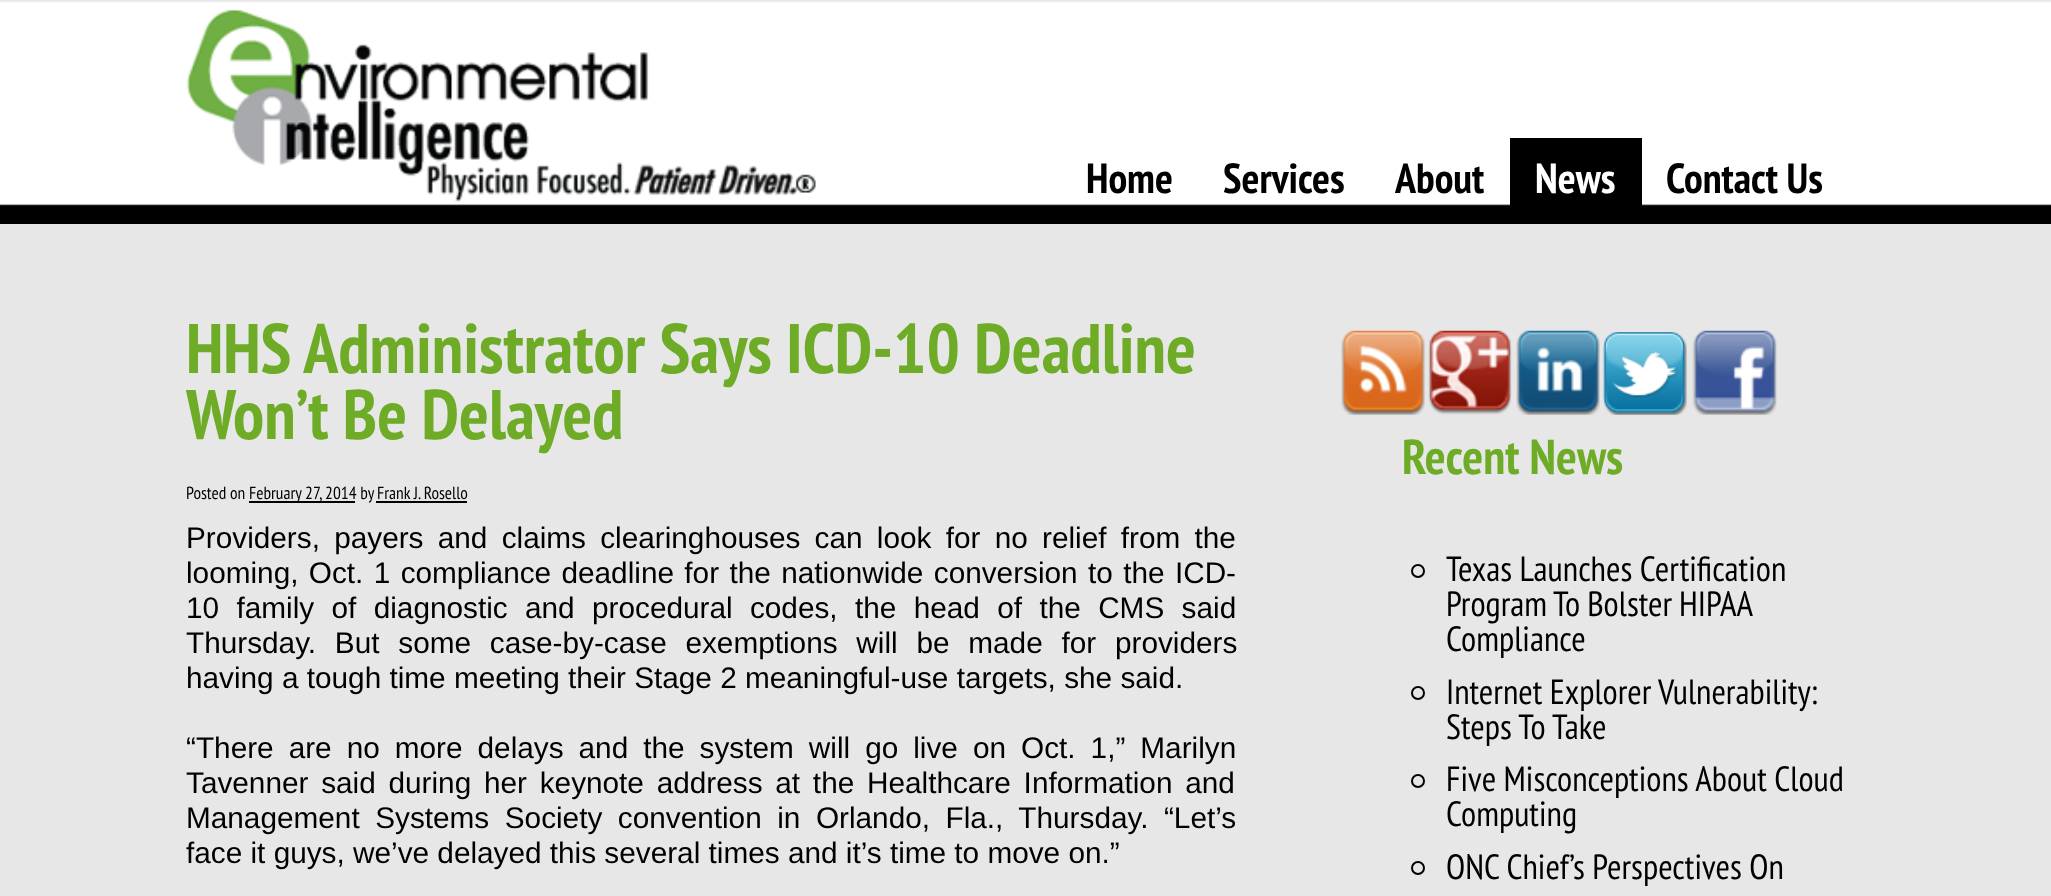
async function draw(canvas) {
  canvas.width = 2051;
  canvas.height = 896;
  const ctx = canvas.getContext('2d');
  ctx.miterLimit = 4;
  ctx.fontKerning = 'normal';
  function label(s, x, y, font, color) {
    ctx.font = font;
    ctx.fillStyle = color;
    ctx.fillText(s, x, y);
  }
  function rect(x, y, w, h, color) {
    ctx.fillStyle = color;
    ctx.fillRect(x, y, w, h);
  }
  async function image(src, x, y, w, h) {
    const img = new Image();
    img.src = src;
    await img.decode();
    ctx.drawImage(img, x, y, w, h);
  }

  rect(0, 0, 2051, 896, '#e7e7e7');
  await image('assets/img1.png', 0, 1, 2051, 223);
  await image('assets/img2.png', 186, 9, 630, 193);
  label('Home', 1086, 193, 'bold 42px PT Sans Narrow', '#000');
  label('Services', 1223, 193, 'bold 42px PT Sans Narrow', '#000');
  label('About', 1395, 193, 'bold 42px PT Sans Narrow', '#000');
  rect(1510, 138, 132, 68, '#000');
  label('News', 1535, 193, 'bold 42px PT Sans Narrow', '#fff');
  label('Contact Us', 1666, 193, 'bold 42px PT Sans Narrow', '#000');
  label('HHS Administrator Says ICD-10 Deadline', 186, 373, 'bold 70px PT Sans Narrow', '#6eac27');
  ctx.save();
  ctx.beginPath();
  ctx.rect(186, 313, 1680, 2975);
  ctx.clip();
  label('Won’t Be Delayed', 186, 439, 'bold 70px PT Sans Narrow', '#6eac27');
  ctx.restore();
  label('Posted on', 186, 499, '17.5px PT Sans Narrow', '#000');
  rect(249, 501, 106, 2, '#000');
  label('February 27, 2014 by', 249, 499, '17.5px PT Sans Narrow', '#000');
  label('Frank J. Rosello', 377, 499, '17.5px PT Sans Narrow', '#000');
  rect(376, 501, 91, 2, '#000');
  ctx.wordSpacing = '6px';
  label('Providers, payers and claims clearinghouses can look for no relief from the', 186, 548, '29.75px Liberation Sans', '#000');
  ctx.wordSpacing = '2.1px';
  label('looming, Oct. 1 compliance deadline for the nationwide conversion to the ICD-', 186, 583, '29.75px Liberation Sans', '#000');
  ctx.wordSpacing = '9.1px';
  label('10 family of diagnostic and procedural codes, the head of the CMS said', 186, 618, '29.75px Liberation Sans', '#000');
  ctx.wordSpacing = '10.5px';
  label('Thursday. But some case-by-case exemptions will be made for providers', 186, 653, '29.75px Liberation Sans', '#000');
  ctx.wordSpacing = '0px';
  label('having a tough time meeting their Stage 2 meaningful-use targets, she said.', 186, 688, '29.75px Liberation Sans', '#000');
  ctx.wordSpacing = '6.75px';
  label('“There are no more delays and the system will go live on Oct. 1,” Marilyn', 186, 758, '29.75px Liberation Sans', '#000');
  ctx.wordSpacing = '4.5px';
  label('Tavenner said during her keynote address at the Healthcare Information and', 186, 793, '29.75px Liberation Sans', '#000');
  ctx.wordSpacing = '7.25px';
  label('Management Systems Society convention in Orlando, Fla., Thursday. “Let’s', 186, 828, '29.75px Liberation Sans', '#000');
  ctx.wordSpacing = '0px';
  label('face it guys, we’ve delayed this several times and it’s time to move on.”', 186, 863, '29.75px Liberation Sans', '#000');
  await image('assets/img3.png', 1341, 330, 84, 85);
  await image('assets/img4.png', 1428, 330, 84, 85);
  await image('assets/img5.png', 1516, 330, 84, 85);
  await image('assets/img6.png', 1603, 332, 84, 83);
  await image('assets/img7.png', 1692, 330, 85, 85);
  label('Recent News', 1402, 474, 'bold 49px PT Sans Narrow', '#6eac27');
  ctx.beginPath();
  ctx.arc(1418, 571, 6, 0, 2 * Math.PI);
  ctx.strokeStyle = '#000';
  ctx.lineWidth = 2;
  ctx.stroke();
  label('Texas Launches Certification', 1446, 581, '35px PT Sans Narrow', '#000');
  ctx.wordSpacing = '-0.5px';
  label('Program To Bolster HIPAA', 1446, 616, '35px PT Sans Narrow', '#000');
  ctx.wordSpacing = '0px';
  label('Compliance', 1446, 651, '35px PT Sans Narrow', '#000');
  ctx.beginPath();
  ctx.arc(1418, 693, 6, 0, 2 * Math.PI);
  ctx.stroke();
  label('Internet Explorer Vulnerability:', 1446, 704, '35px PT Sans Narrow', '#000');
  label('Steps To Take', 1446, 739, '35px PT Sans Narrow', '#000');
  ctx.beginPath();
  ctx.arc(1418, 781, 6, 0, 2 * Math.PI);
  ctx.stroke();
  label('Five Misconceptions About Cloud', 1446, 791, '35px PT Sans Narrow', '#000');
  label('Computing', 1446, 826, '35px PT Sans Narrow', '#000');
  ctx.beginPath();
  ctx.arc(1418, 868, 6, 0, 2 * Math.PI);
  ctx.stroke();
  label('ONC Chief’s Perspectives On', 1446, 879, '35px PT Sans Narrow', '#000');
}

draw(document.querySelector('canvas'));
